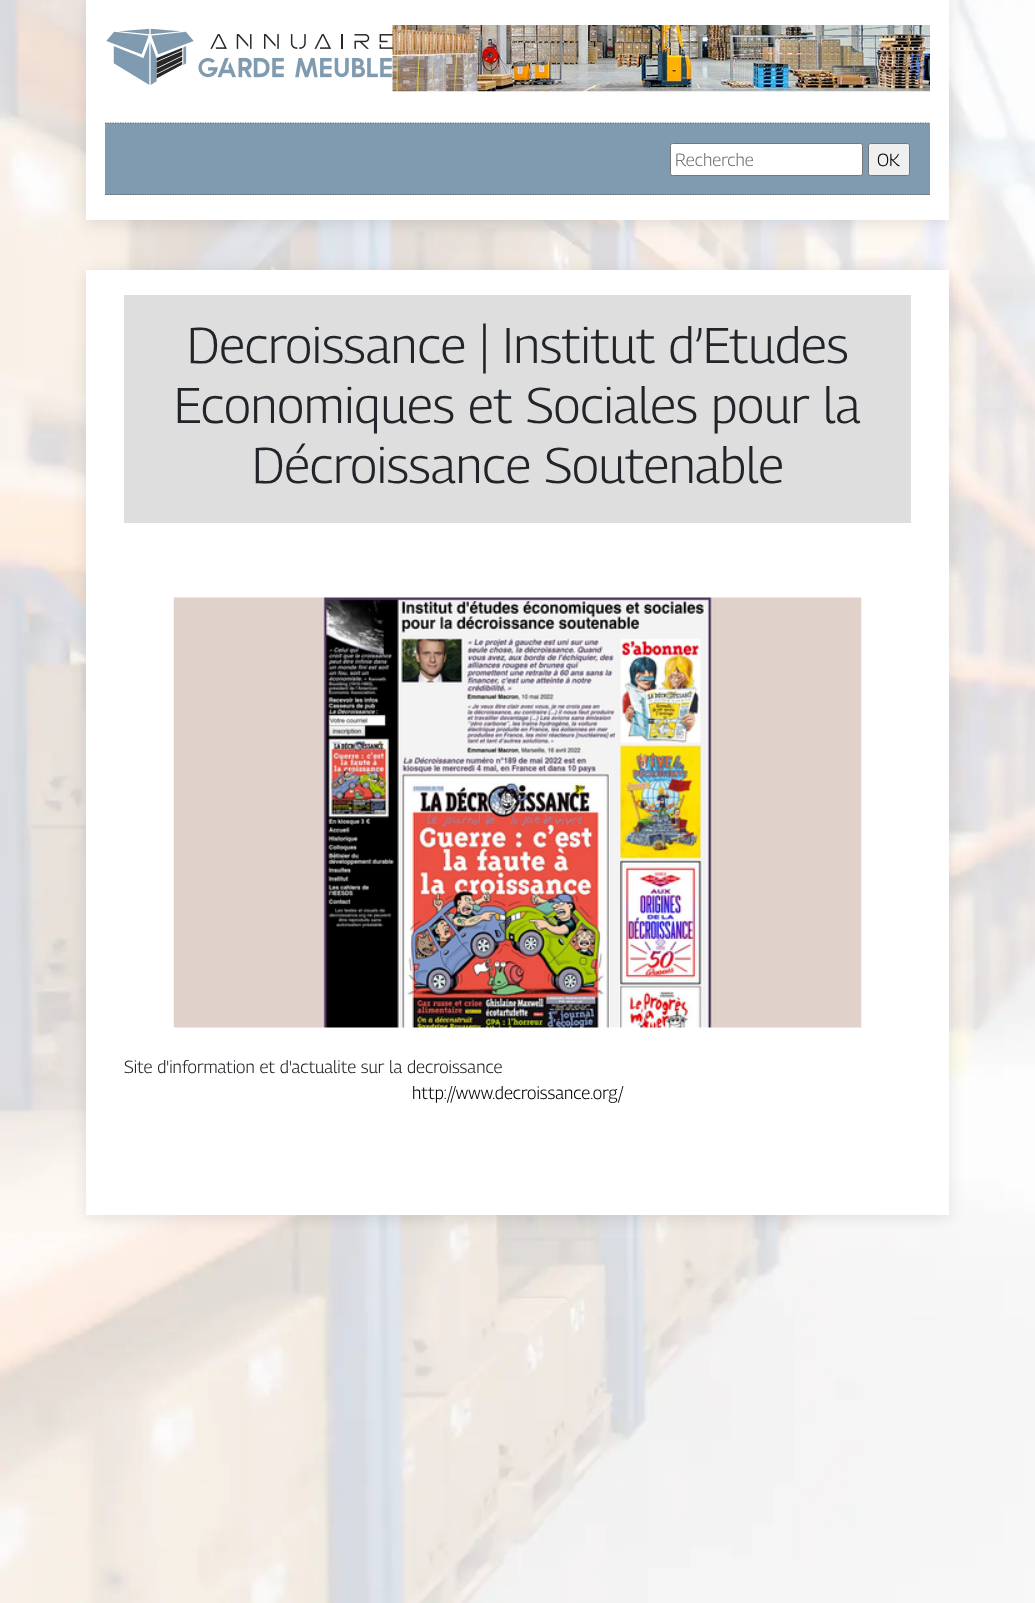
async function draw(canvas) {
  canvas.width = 1035;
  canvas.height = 1603;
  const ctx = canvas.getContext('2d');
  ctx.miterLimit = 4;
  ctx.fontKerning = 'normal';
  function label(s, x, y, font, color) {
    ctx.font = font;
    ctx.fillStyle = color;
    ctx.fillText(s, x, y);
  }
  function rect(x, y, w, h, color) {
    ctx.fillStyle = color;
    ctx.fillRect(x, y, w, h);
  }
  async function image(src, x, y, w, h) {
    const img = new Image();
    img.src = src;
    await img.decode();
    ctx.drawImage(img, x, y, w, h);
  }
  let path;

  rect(0, 0, 1035, 1603, '#fff');
  await image('assets/img1.png', 0, 0, 1035, 1603);
  ctx.fillStyle = '#0000001a';
  ctx.filter = 'blur(8px)';
  ctx.beginPath();
  ctx.rect(86, 3, 863, 220);
  ctx.fill();
  ctx.filter = 'none';
  rect(86, 0, 863, 220, '#fff');
  await image('assets/img2.png', 106, 28, 287, 57);
  await image('assets/img3.png', 392, 25, 538, 67);
  rect(105, 123, 825, 72, '#809baf');
  path = new Path2D('M105 123H930');
  ctx.strokeStyle = '#666';
  ctx.lineWidth = 1.2;
  ctx.setLineDash([1.25, 1.25]);
  ctx.stroke(path);
  path = new Path2D('M105 194.5H930');
  ctx.stroke(path);
  ctx.fillStyle = '#fff';
  ctx.beginPath();
  ctx.roundRect(670.5, 143.5, 192, 32, 2);
  ctx.fill();
  ctx.strokeStyle = '#767676';
  ctx.lineWidth = 1;
  ctx.setLineDash([]);
  ctx.stroke();
  label('Recherche', 675, 166, '100 17.5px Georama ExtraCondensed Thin', '#757575');
  ctx.fillStyle = '#efefef';
  ctx.beginPath();
  ctx.roundRect(868.5, 143.5, 41, 32, 2);
  ctx.fill();
  ctx.stroke();
  label('OK', 877, 166, '100 17.5px Georama ExtraCondensed Thin', '#000');
  ctx.fillStyle = '#0000001a';
  ctx.filter = 'blur(8px)';
  ctx.beginPath();
  ctx.rect(86, 273, 863, 945);
  ctx.fill();
  ctx.filter = 'none';
  rect(86, 270, 863, 945, '#fff');
  rect(124, 295, 787, 228, '#dedede');
  label('Decroissance | Institut d’Etudes', 187, 363, '100 50px Georama ExtraCondensed Thin', '#212529');
  label('Economiques et Sociales pour la', 174, 423, '100 50px Georama ExtraCondensed Thin', '#212529');
  label('Décroissance Soutenable', 252, 483, '100 50px Georama ExtraCondensed Thin', '#212529');
  await image('assets/img4.png', 173, 597, 689, 431);
  label('Site d\'information et d\'actualite sur la decroissance', 124, 1073, '100 17.5px Georama ExtraCondensed Thin', '#212529');
  label('http://www.decroissance.org/', 412, 1099, '100 17.5px Georama ExtraCondensed Thin', '#000');
}

draw(document.querySelector('canvas'));
